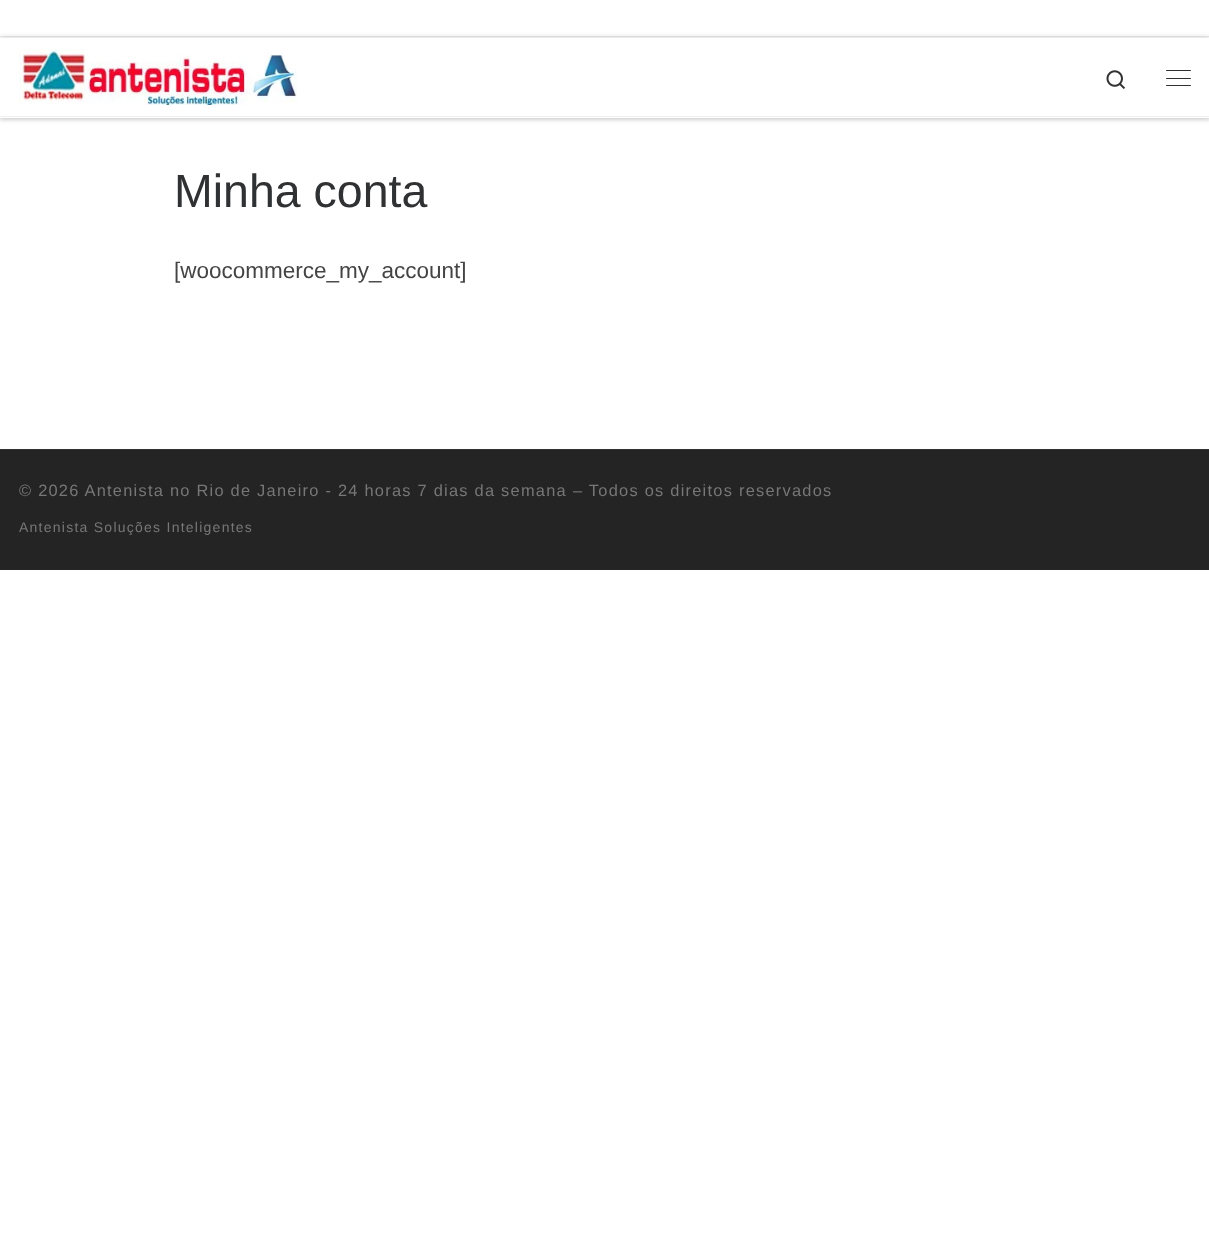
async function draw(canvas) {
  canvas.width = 1209;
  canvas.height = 1251;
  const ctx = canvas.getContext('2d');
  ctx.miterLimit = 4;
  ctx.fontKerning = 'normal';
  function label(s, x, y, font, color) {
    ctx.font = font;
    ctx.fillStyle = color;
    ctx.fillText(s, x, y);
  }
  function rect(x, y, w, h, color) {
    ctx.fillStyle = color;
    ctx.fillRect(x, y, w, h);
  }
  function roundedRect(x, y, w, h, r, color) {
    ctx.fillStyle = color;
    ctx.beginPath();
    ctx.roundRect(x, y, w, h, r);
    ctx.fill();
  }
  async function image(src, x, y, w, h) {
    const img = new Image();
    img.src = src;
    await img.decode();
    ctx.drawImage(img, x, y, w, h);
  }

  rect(0, 0, 1209, 1251, '#fff');
  ctx.fillStyle = '#66666614';
  ctx.filter = 'blur(1px)';
  ctx.beginPath();
  ctx.rect(0, 3, 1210, 118);
  ctx.fill();
  ctx.filter = 'none';
  rect(0, 2, 1209, 36, '#fff');
  rect(0, 118, 1209, 1, '#efefef');
  rect(0, 36, 1209, 1, '#ececec');
  ctx.fillStyle = '#00000033';
  ctx.filter = 'blur(3px)';
  ctx.beginPath();
  ctx.rect(0, 38, 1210, 80);
  ctx.fill();
  ctx.filter = 'none';
  rect(0, 38, 1209, 80, '#fff');
  await image('assets/img1.png', 19, 49, 278, 56);
  await image('assets/img2.png', 1106, 70, 20, 19);
  roundedRect(1166, 70, 25, 1, 0.5, '#313131');
  roundedRect(1166, 78, 25, 1, 0.5, '#313131');
  roundedRect(1166, 85, 25, 1, 0.5, '#313131');
  rect(0, 116, 1209, 1, '#f0f0f0');
  label('Minha conta', 174, 207, '46.5px Liberation Sans', '#303133');
  label('[woocommerce_my_account]', 174, 278, '22.5px Liberation Sans', '#444');
  rect(0, 449, 1209, 1, '#313131');
  rect(0, 450, 1209, 120, '#242424');
  ctx.letterSpacing = '1.25px';
  label('© 2026 Antenista no Rio de Janeiro - 24 horas 7 dias da semana', 19, 496, '16.4px Liberation Sans', '#777');
  label('– Todos os direitos reservados', 573, 496, '16.4px Liberation Sans', '#777');
  label('Antenista Soluções Inteligentes', 19, 532, '14px Liberation Sans', '#777');
}

draw(document.querySelector('canvas'));
